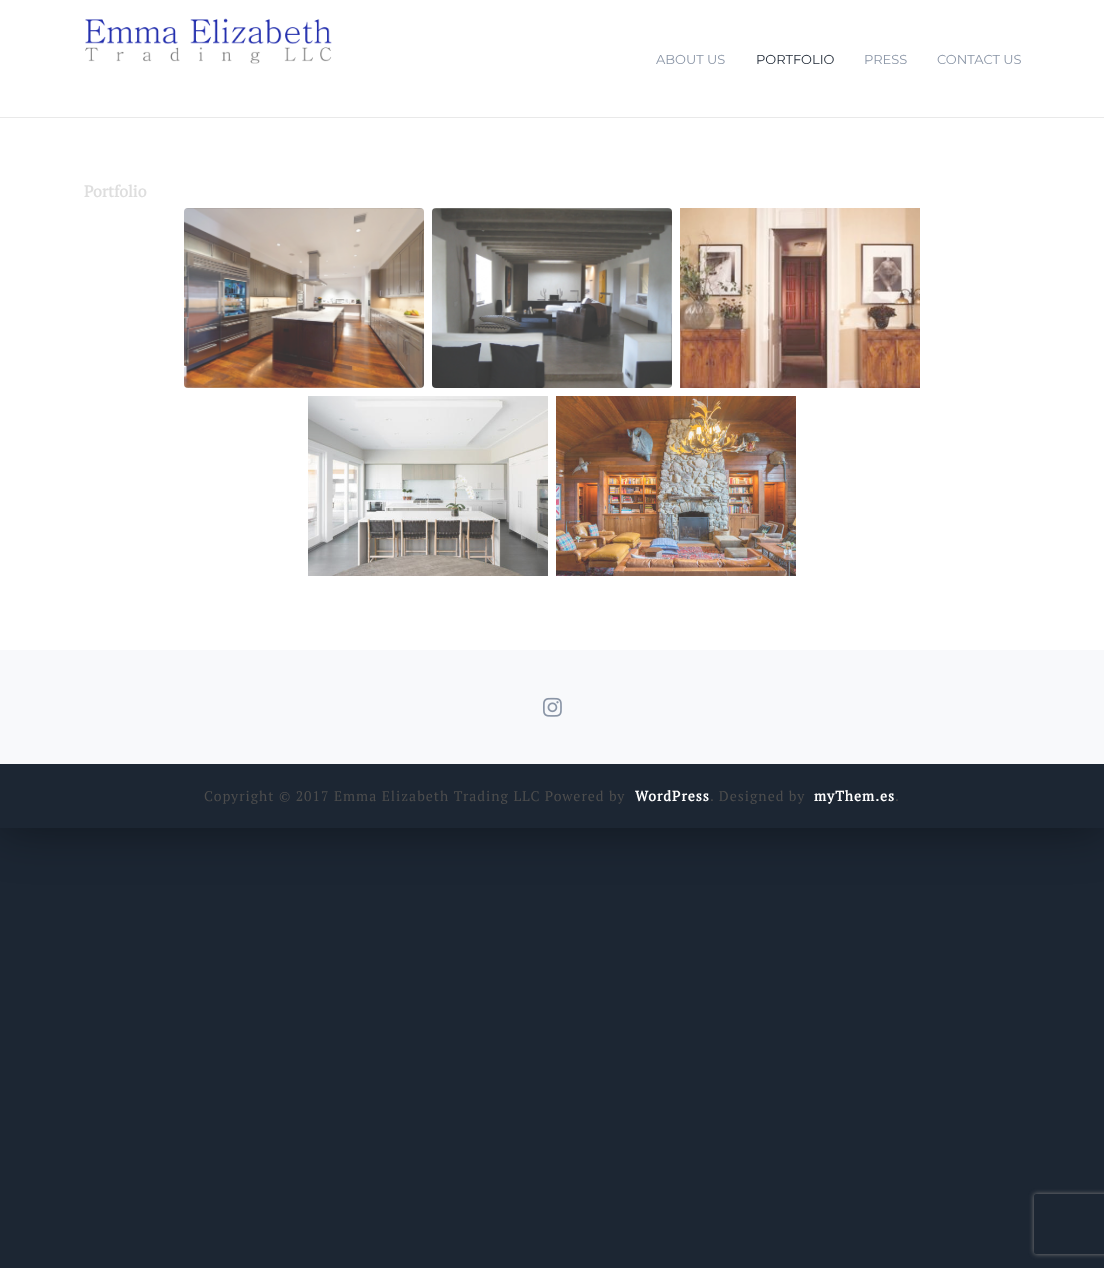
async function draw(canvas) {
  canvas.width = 1104;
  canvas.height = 1268;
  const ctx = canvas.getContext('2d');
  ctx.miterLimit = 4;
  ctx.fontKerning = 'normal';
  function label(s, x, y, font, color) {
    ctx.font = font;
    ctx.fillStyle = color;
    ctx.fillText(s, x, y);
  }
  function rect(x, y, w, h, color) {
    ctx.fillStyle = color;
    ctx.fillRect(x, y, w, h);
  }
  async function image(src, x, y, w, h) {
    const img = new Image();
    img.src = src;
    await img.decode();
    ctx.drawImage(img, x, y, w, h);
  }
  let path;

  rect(0, 0, 1104, 1268, '#1c2633');
  ctx.fillStyle = '#00000066';
  ctx.filter = 'blur(25px)';
  ctx.beginPath();
  ctx.rect(-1, -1, 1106, 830);
  ctx.fill();
  ctx.filter = 'none';
  rect(0, 0, 1104, 650, '#fff');
  rect(0, 117, 1104, 1, '#e9e9e9');
  await image('assets/img1.png', 85, 18, 247, 46);
  label('ABOUT US', 656, 64, '13px Montserrat', '#8a95a6');
  label('PORTFOLIO', 756, 64, '13px Montserrat', '#1c2633');
  label('PRESS', 864, 64, '13px Montserrat', '#8a95a6');
  label('CONTACT US', 937, 64, '13px Montserrat', '#8a95a6');
  label('Portfolio', 84, 197, 'bold 16px PT Serif', '#dedede');
  await image('assets/img2.png', 184, 208, 240, 180);
  await image('assets/img3.png', 432, 208, 240, 180);
  await image('assets/img4.png', 680, 208, 240, 180);
  await image('assets/img5.png', 308, 396, 240, 180);
  await image('assets/img6.png', 556, 396, 240, 180);
  rect(0, 650, 1104, 114, '#f8f9fb');
  await image('assets/img7.png', 543, 697, 19, 20);
  rect(0, 764, 1104, 64, '#1c2633');
  ctx.letterSpacing = '1px';
  label('Copyright © 2017 Emma Elizabeth Trading LLC Powered by', 204, 801, '14px PT Serif', '#4d4d4d');
  label('WordPress', 635, 801, 'bold 14px PT Serif', '#fff');
  label('. Designed by', 710, 801, '14px PT Serif', '#4d4d4d');
  label('myThem.es', 814, 801, 'bold 14px PT Serif', '#fff');
  label('.', 895, 801, '14px PT Serif', '#4d4d4d');
  ctx.save();
  path = new Path2D('M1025 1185H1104V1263H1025ZM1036 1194H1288C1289 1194 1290 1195 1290 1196V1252C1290 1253 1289 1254 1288 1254H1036C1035 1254 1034 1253 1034 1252V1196C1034 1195 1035 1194 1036 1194Z');
  ctx.clip(path, 'evenodd');
  ctx.fillStyle = '#808080';
  ctx.filter = 'blur(2.5px)';
  ctx.beginPath();
  ctx.roundRect(1034, 1194, 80, 60, 2);
  ctx.fill();
  ctx.filter = 'none';
  ctx.restore();
}

draw(document.querySelector('canvas'));
